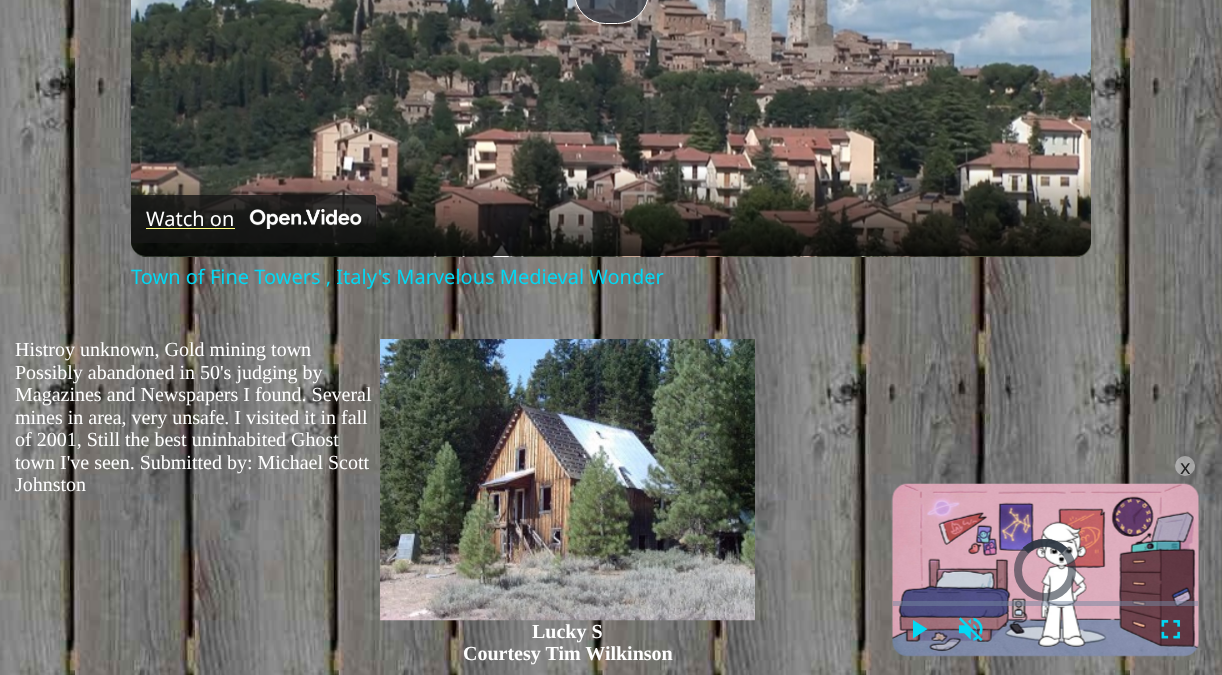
async function draw(canvas) {
  canvas.width = 1222;
  canvas.height = 675;
  const ctx = canvas.getContext('2d');
  ctx.miterLimit = 4;
  ctx.fontKerning = 'normal';
  function label(s, x, y, font, color) {
    ctx.font = font;
    ctx.fillStyle = color;
    ctx.fillText(s, x, y);
  }
  function rect(x, y, w, h, color) {
    ctx.fillStyle = color;
    ctx.fillRect(x, y, w, h);
  }
  async function image(src, x, y, w, h) {
    const img = new Image();
    img.src = src;
    await img.decode();
    ctx.drawImage(img, x, y, w, h);
  }
  let gradient, path;

  rect(0, 0, 1222, 675, '#fff');
  await image('assets/img1.png', 0, 0, 1222, 675);
  await image('assets/img2.png', 131, 0, 960, 257);
  ctx.fillStyle = '#2b333fb3';
  ctx.beginPath();
  ctx.roundRect(574.5, -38.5, 74, 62, 37);
  ctx.fill();
  ctx.strokeStyle = '#fff';
  ctx.stroke();
  await image('assets/img3.png', 131, 242, 960, 15);
  gradient = ctx.createLinearGradient(611, -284, 611, 256);
  gradient.addColorStop(0, '#00000099');
  gradient.addColorStop(0.16, '#00000000');
  gradient.addColorStop(0.84, '#00000000');
  gradient.addColorStop(1, '#000000cc');
  ctx.fillStyle = gradient;
  ctx.beginPath();
  ctx.roundRect(131, -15, 960, 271, 15);
  ctx.fill();
  ctx.fillStyle = '#171717cc';
  ctx.beginPath();
  ctx.roundRect(131, 195, 245, 48, [0, 2.5, 2.5, 0]);
  ctx.fill();
  label('Watch on', 146, 226, '20px Noto Sans', '#fff');
  rect(146, 228, 89, 1, '#ffff80');
  await image('assets/img4.png', 249, 209, 113, 20);
  ctx.fillStyle = '#ffffff66';
  ctx.beginPath();
  ctx.arc(1185, 466, 10, 0, 2 * Math.PI);
  ctx.fill();
  label('x', 1180, 474, '20px Noto Sans', '#222');
  await image('assets/img5.png', 892, 483, 307, 174);
  ctx.beginPath();
  ctx.arc(1045, 570, 27, 0, 2 * Math.PI);
  ctx.strokeStyle = '#2b333f96';
  ctx.lineWidth = 8;
  ctx.stroke();
  path = new Path2D('M1025.5 550.5C1036 540 1054 540 1064.5 550.5');
  ctx.lineWidth = 7.5;
  ctx.stroke(path);
  path = new Path2D('M1025.5 550.5C1036 540 1054 540 1064.5 550.5');
  ctx.stroke(path);
  rect(893, 601, 305, 5, '#73859f80');
  ctx.fillStyle = '#03d8f3';
  path = new Path2D('M913 620V638.5L927.5 629Z');
  ctx.fill(path);
  await image('assets/img6.png', 958, 617, 25, 24);
  await image('assets/img7.png', 1161, 620, 19, 19);
  label('Town of Fine Towers , Italy\'s Marvelous Medieval Wonder', 131, 284, '20px Noto Sans', '#03d8f3');
  label('Histroy unknown, Gold mining town', 15, 356, '20px Liberation Serif', '#fff');
  label('Possibly abandoned in 50\'s judging by', 15, 379, '20px Liberation Serif', '#fff');
  label('Magazines and Newspapers I found. Several', 15, 401, '20px Liberation Serif', '#fff');
  label('mines in area, very unsafe. I visited it in fall', 15, 424, '20px Liberation Serif', '#fff');
  label('of 2001, Still the best uninhabited Ghost', 15, 446, '20px Liberation Serif', '#fff');
  label('town I\'ve seen. Submitted by: Michael Scott', 15, 469, '20px Liberation Serif', '#fff');
  label('Johnston', 15, 491, '20px Liberation Serif', '#fff');
  await image('assets/img8.png', 380, 339, 375, 282);
  label('Lucky S', 532, 638, 'bold 20px Liberation Serif', '#fff');
  label('Courtesy Tim Wilkinson', 463, 660, 'bold 20px Liberation Serif', '#fff');
}

draw(document.querySelector('canvas'));
